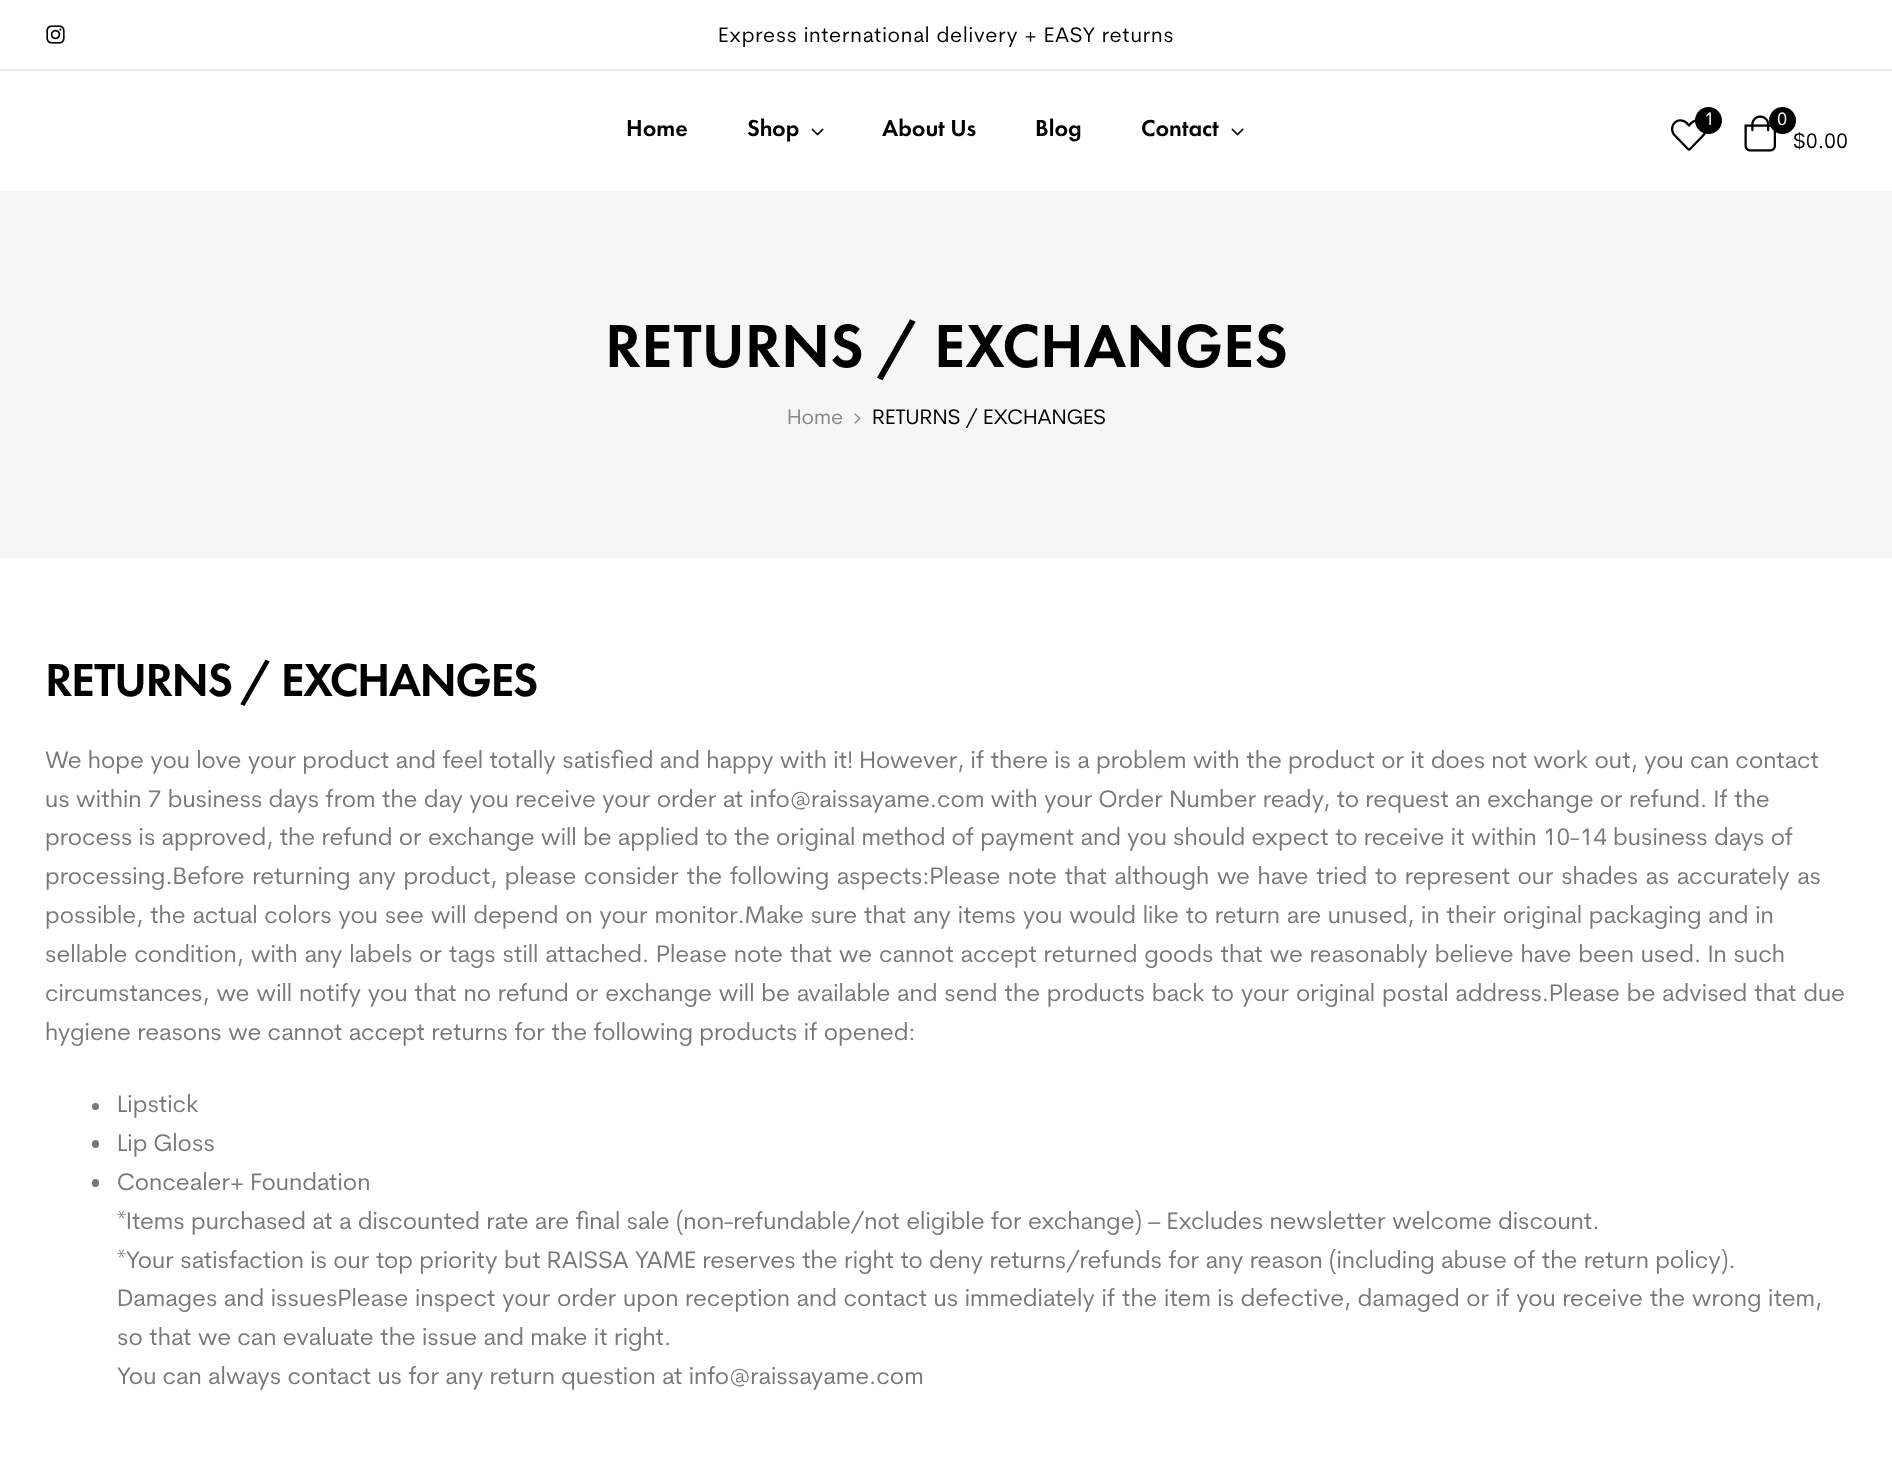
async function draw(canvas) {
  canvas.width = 1892;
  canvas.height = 1460;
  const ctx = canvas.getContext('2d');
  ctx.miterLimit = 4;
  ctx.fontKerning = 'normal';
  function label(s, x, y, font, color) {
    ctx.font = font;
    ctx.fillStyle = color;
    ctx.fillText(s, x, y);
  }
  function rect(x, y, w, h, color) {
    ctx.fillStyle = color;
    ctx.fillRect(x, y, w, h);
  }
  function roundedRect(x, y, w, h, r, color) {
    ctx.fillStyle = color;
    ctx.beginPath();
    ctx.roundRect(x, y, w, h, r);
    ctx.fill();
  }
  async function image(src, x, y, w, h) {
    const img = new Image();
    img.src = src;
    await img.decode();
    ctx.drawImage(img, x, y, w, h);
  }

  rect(0, 0, 1892, 1460, '#fff');
  rect(0, 69, 1892, 2, '#ebebeb');
  await image('assets/img1.png', 46, 25, 19, 19);
  ctx.letterSpacing = '0.75px';
  label('Express international delivery + EASY returns', 718, 42, '21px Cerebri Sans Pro', '#000');
  ctx.letterSpacing = '0px';
  label('Home', 626, 136, '500 24px Futura PT', '#000');
  label('Shop', 747, 136, '500 24px Futura PT', '#000');
  await image('assets/img2.png', 811, 128, 13, 8);
  label('About Us', 882, 136, '500 24px Futura PT', '#000');
  label('Blog', 1035, 136, '500 24px Futura PT', '#000');
  label('Contact', 1141, 136, '500 24px Futura PT', '#000');
  await image('assets/img2.png', 1231, 128, 13, 8);
  await image('assets/img3.png', 1671, 119, 36, 32);
  ctx.beginPath();
  ctx.arc(1708.5, 120.5, 13.5, 0, 2 * Math.PI);
  ctx.fill();
  label('1', 1704, 125, '18px Cerebri Sans Pro', '#fff');
  await image('assets/img4.png', 1744, 115, 32, 37);
  ctx.fillStyle = '#000';
  ctx.beginPath();
  ctx.arc(1782.5, 120.5, 13.5, 0, 2 * Math.PI);
  ctx.fill();
  label('0', 1777, 125, '18px Cerebri Sans Pro', '#fff');
  label('$0.00', 1793, 148, '21px Cerebri Sans Pro', '#000');
  rect(0, 191, 1892, 367, '#f6f6f6');
  label('RETURNS / EXCHANGES', 605, 367, '500 63px Futura PT', '#000');
  label('Home', 787, 424, '21px Cerebri Sans Pro', '#888');
  await image('assets/img5.png', 854, 413, 7, 11);
  label('RETURNS / EXCHANGES', 872, 424, '21px Cerebri Sans Pro', '#000');
  ctx.letterSpacing = '-1.5px';
  label('RETURNS / EXCHANGES', 45, 696, '500 48px Futura PT', '#000');
  ctx.letterSpacing = '0px';
  label('We hope you love your product and feel totally satisfied and happy with it! However, if there is a problem with the product or it does not work out, you can contact', 45, 768, '24px Cerebri Sans Pro', '#787878');
  label('us within 7 business days from the day you receive your order at info@raissayame.com with your Order Number ready, to request an exchange or refund. If the', 45, 807, '24px Cerebri Sans Pro', '#787878');
  label('process is approved, the refund or exchange will be applied to the original method of payment and you should expect to receive it within 10-14 business days of', 45, 845, '24px Cerebri Sans Pro', '#787878');
  ctx.wordSpacing = '1.2px';
  label('processing.Before returning any product, please consider the following aspects:Please note that although we have tried to represent our shades as accurately as', 45, 884, '24px Cerebri Sans Pro', '#787878');
  ctx.wordSpacing = '0.45px';
  label('possible, the actual colors you see will depend on your monitor.Make sure that any items you would like to return are unused, in their original packaging and in', 45, 923, '24px Cerebri Sans Pro', '#787878');
  ctx.wordSpacing = '0.5px';
  label('sellable condition, with any labels or tags still attached. Please note that we cannot accept returned goods that we reasonably believe have been used. In such', 45, 962, '24px Cerebri Sans Pro', '#787878');
  label('circumstances, we will notify you that no refund or exchange will be available and send the products back to your original postal address.Please be advised that due', 45, 1001, '24px Cerebri Sans Pro', '#787878');
  ctx.wordSpacing = '0px';
  label('hygiene reasons we cannot accept returns for the following products if opened:', 45, 1040, '24px Cerebri Sans Pro', '#787878');
  ctx.beginPath();
  ctx.arc(95.5, 1106.5, 3.5, 0, 2 * Math.PI);
  ctx.fill();
  label('Lipstick', 117, 1112, '24px Cerebri Sans Pro', '#787878');
  roundedRect(92, 1140, 7, 8, 3.5, '#787878');
  label('Lip Gloss', 117, 1151, '24px Cerebri Sans Pro', '#787878');
  roundedRect(92, 1179, 7, 8, 3.5, '#787878');
  label('Concealer+ Foundation', 117, 1190, '24px Cerebri Sans Pro', '#787878');
  label('*Items purchased at a discounted rate are final sale (non-refundable/not eligible for exchange) – Excludes newsletter welcome discount.', 117, 1229, '24px Cerebri Sans Pro', '#787878');
  label('*Your satisfaction is our top priority but RAISSA YAME reserves the right to deny returns/refunds for any reason (including abuse of the return policy).', 117, 1268, '24px Cerebri Sans Pro', '#787878');
  ctx.wordSpacing = '0.25px';
  label('Damages and issuesPlease inspect your order upon reception and contact us immediately if the item is defective, damaged or if you receive the wrong item,', 117, 1306, '24px Cerebri Sans Pro', '#787878');
  ctx.wordSpacing = '0px';
  label('so that we can evaluate the issue and make it right.', 117, 1345, '24px Cerebri Sans Pro', '#787878');
  label('You can always contact us for any return question at info@raissayame.com', 117, 1384, '24px Cerebri Sans Pro', '#787878');
}

draw(document.querySelector('canvas'));
